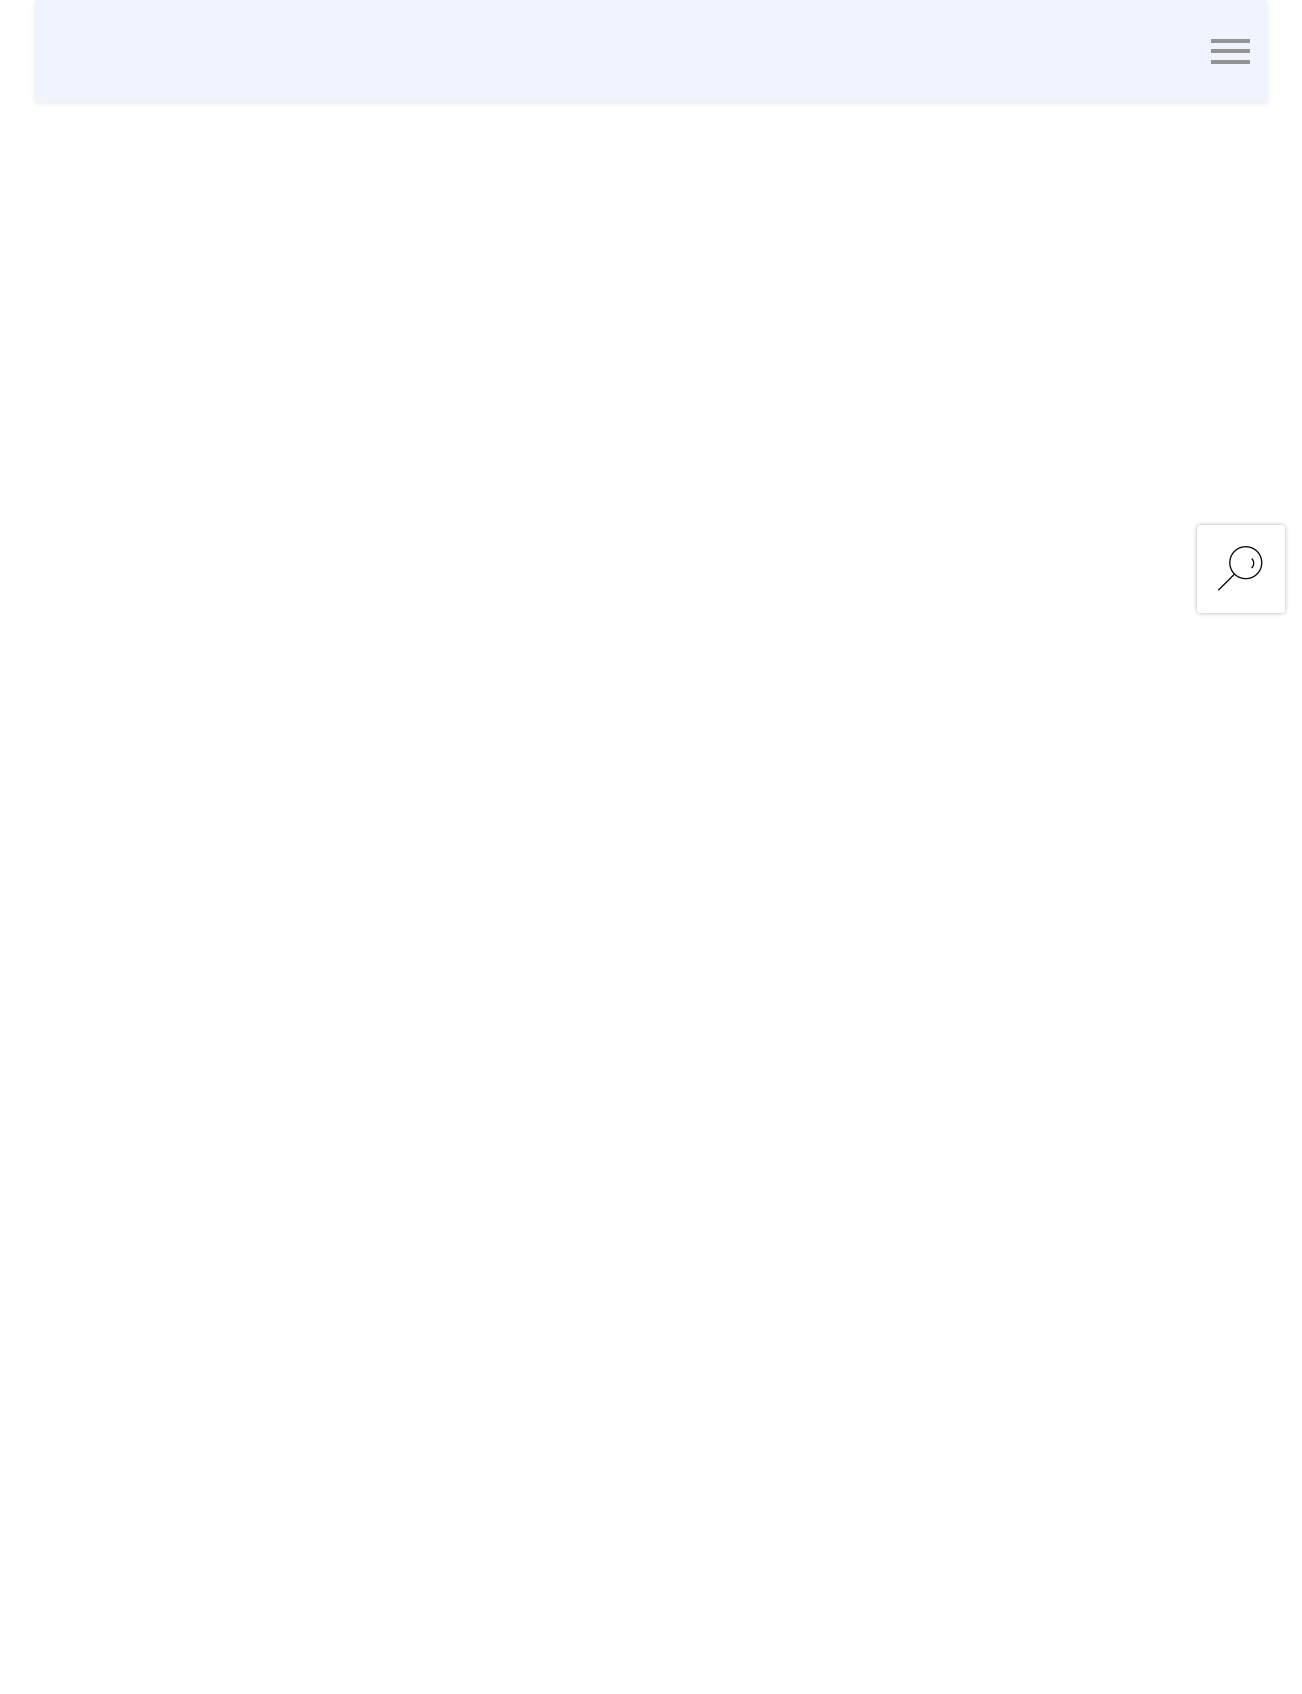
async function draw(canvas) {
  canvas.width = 1302;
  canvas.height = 1694;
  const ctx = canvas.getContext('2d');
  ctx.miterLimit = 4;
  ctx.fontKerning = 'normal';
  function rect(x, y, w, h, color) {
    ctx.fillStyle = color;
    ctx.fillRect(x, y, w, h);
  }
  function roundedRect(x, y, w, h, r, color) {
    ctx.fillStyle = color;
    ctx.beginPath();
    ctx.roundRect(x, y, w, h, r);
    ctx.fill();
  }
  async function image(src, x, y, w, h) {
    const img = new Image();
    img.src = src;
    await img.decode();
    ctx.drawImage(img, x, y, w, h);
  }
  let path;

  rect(0, 0, 1302, 1694, '#fff');
  ctx.fillStyle = '#0000001a';
  ctx.filter = 'blur(2.5px)';
  ctx.beginPath();
  ctx.rect(35, 2, 1232, 101);
  ctx.fill();
  ctx.filter = 'none';
  rect(35, 0, 1232, 102, '#eff4fe');
  rect(1211, 39, 39, 4, '#949494');
  rect(1211, 49, 39, 4, '#949494');
  rect(1211, 60, 39, 4, '#949494');
  ctx.save();
  path = new Path2D('M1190 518H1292V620H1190ZM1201 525H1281C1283 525 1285 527 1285 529V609C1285 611 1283 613 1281 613H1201C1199 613 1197 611 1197 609V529C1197 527 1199 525 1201 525Z');
  ctx.clip(path, 'evenodd');
  ctx.fillStyle = '#0000004d';
  ctx.filter = 'blur(2px)';
  ctx.beginPath();
  ctx.roundRect(1197, 525, 88, 88, 4);
  ctx.fill();
  ctx.filter = 'none';
  ctx.restore();
  roundedRect(1197, 525, 88, 88, 4, '#ffffffcc');
  await image('assets/img1.png', 1217, 546, 46, 45);
}

draw(document.querySelector('canvas'));
